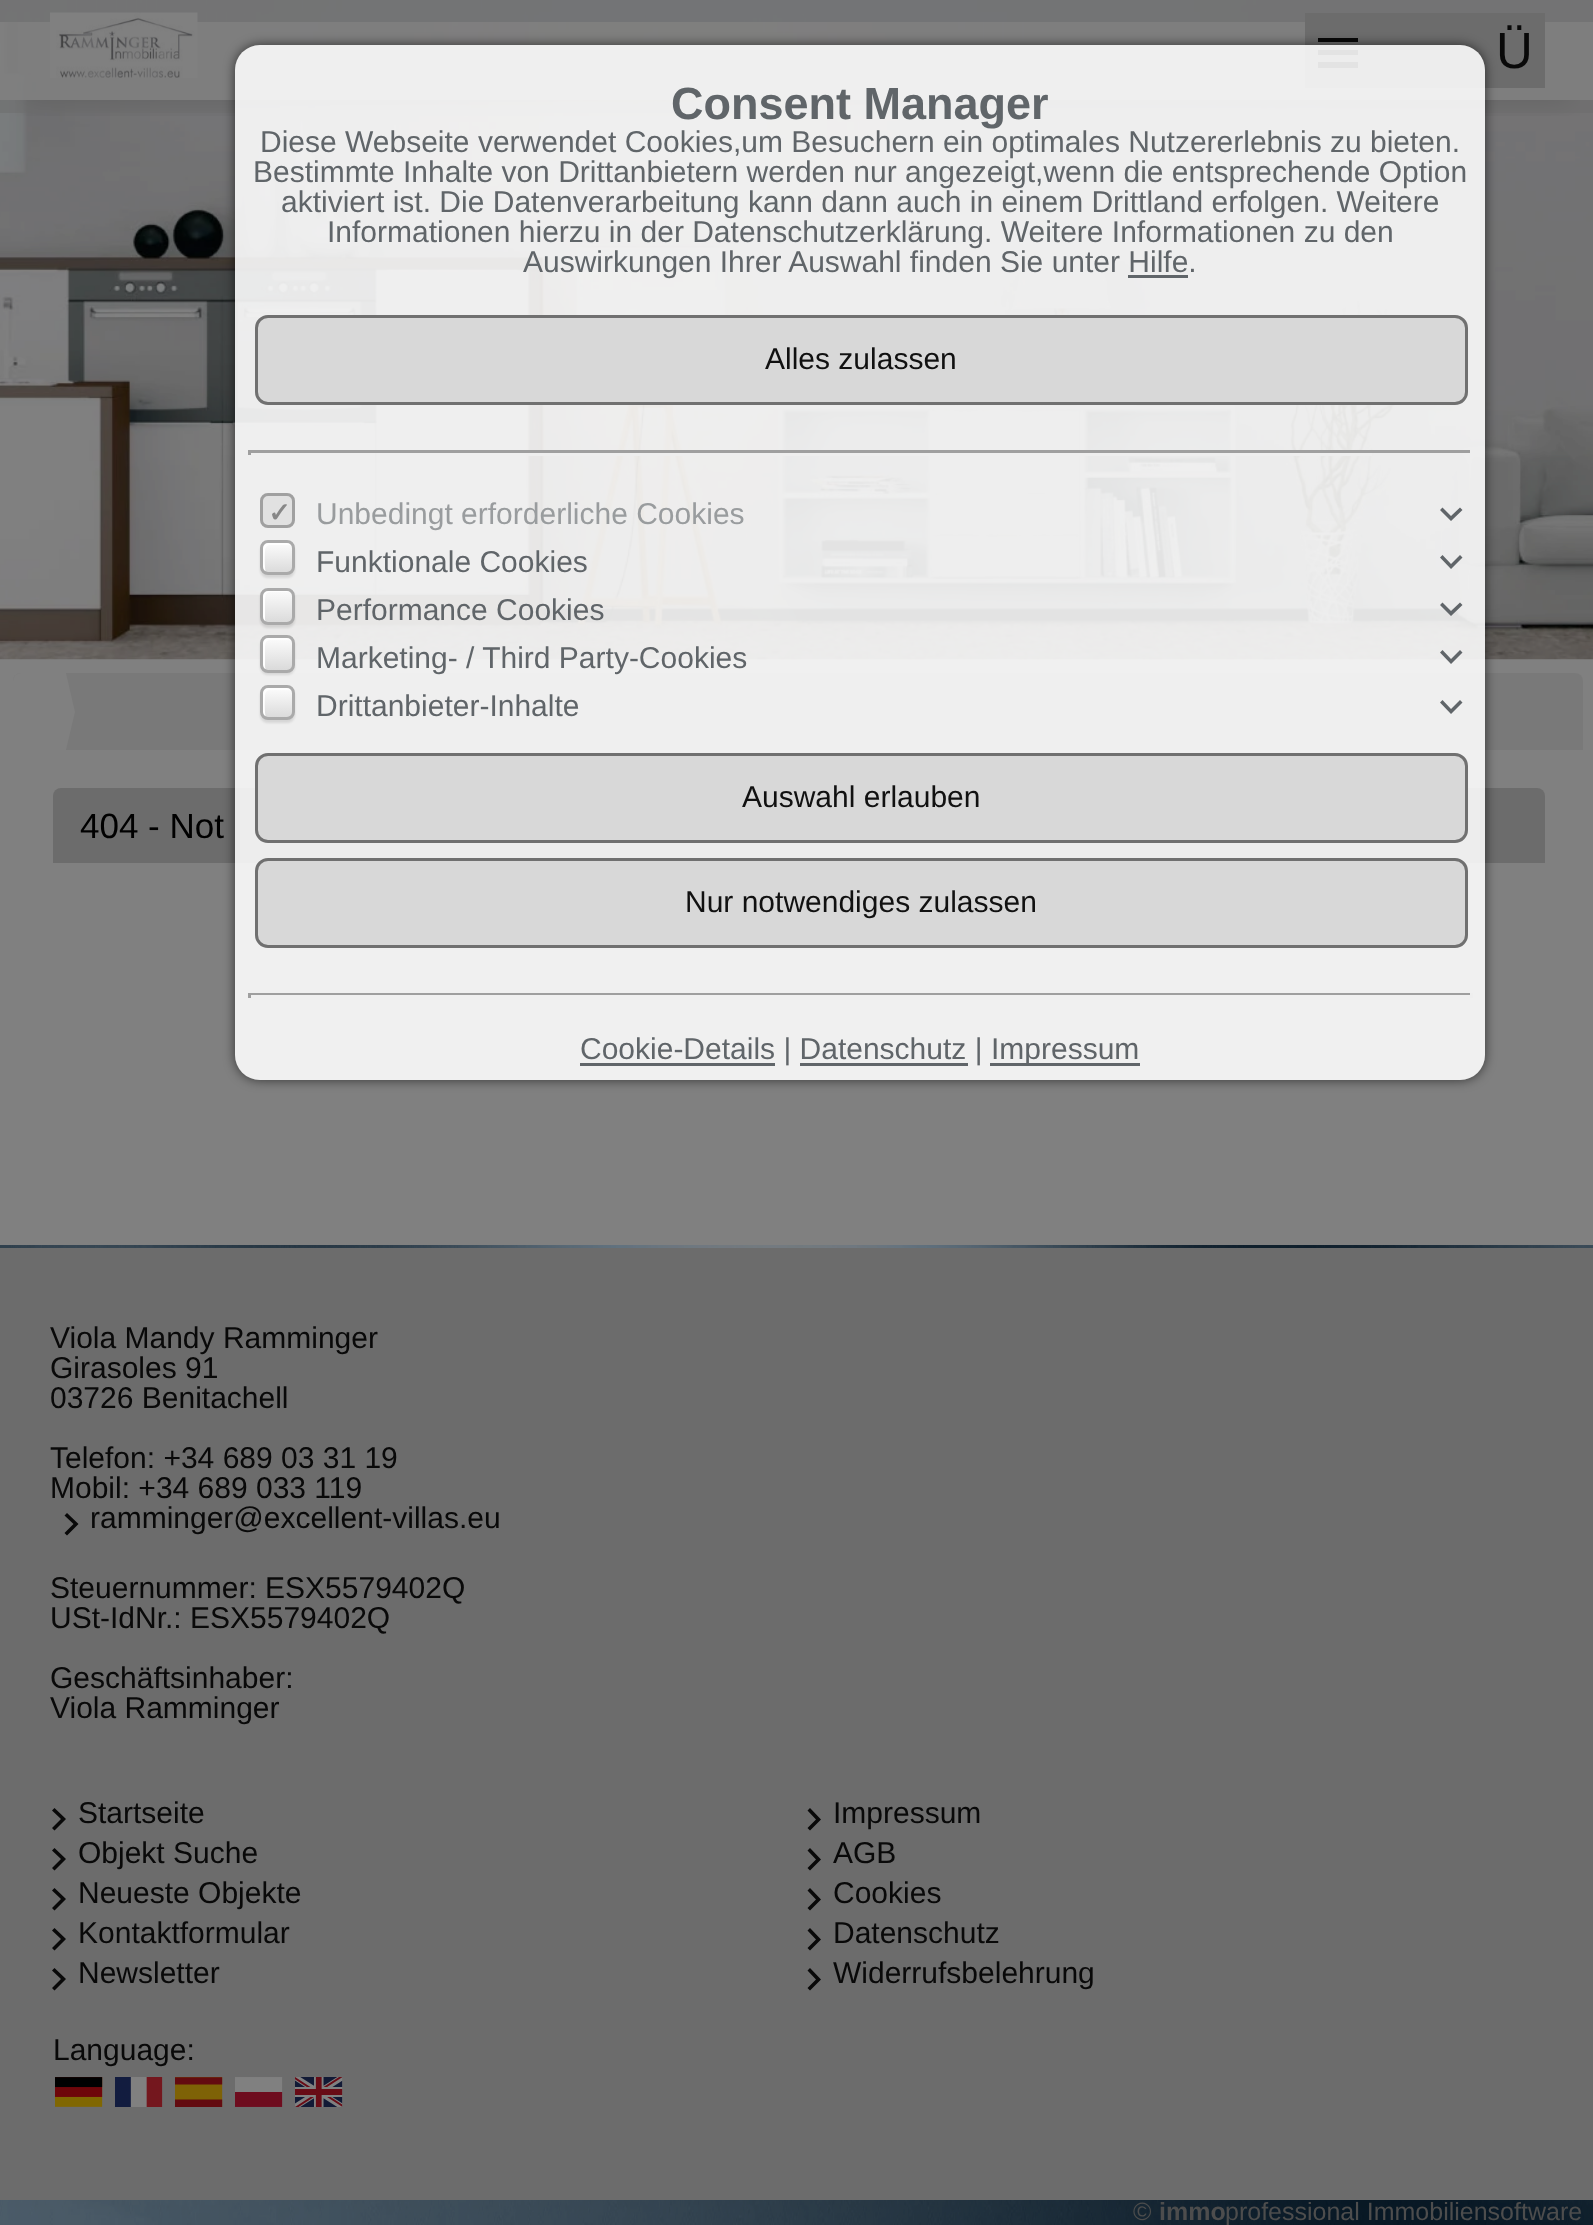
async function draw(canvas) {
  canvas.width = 1593;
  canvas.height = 2225;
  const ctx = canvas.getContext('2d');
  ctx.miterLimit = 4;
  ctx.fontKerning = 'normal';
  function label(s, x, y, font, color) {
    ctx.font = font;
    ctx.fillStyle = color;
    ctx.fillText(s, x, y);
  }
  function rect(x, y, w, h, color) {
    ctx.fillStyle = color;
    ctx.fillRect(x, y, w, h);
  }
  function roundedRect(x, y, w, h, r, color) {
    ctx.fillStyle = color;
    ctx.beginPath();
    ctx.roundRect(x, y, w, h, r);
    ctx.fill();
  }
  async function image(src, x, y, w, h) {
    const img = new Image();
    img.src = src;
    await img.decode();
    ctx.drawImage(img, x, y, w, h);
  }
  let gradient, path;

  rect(0, 0, 1593, 2225, '#fff');
  await image('assets/img1.png', 0, 0, 1593, 2225);
  rect(0, 659, 1593, 586, '#808080');
  await image('assets/img3.png', 0, 22, 1593, 638);
  ctx.save();
  ctx.beginPath();
  ctx.rect(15, 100, 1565, 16);
  ctx.clip();
  ctx.fillStyle = '#00000033';
  ctx.filter = 'blur(12.5px)';
  ctx.beginPath();
  ctx.rect(25, 50, 1545, 50);
  ctx.fill();
  ctx.filter = 'none';
  ctx.restore();
  rect(0, 0, 1593, 100, '#808080e6');
  await image('assets/img2.png', 50, 12, 148, 66);
  rect(0, 100, 1593, 13, '#6c6c6c80');
  rect(1305, 13, 240, 75, '#6c6c6c');
  ctx.fillStyle = '#090909';
  path = new Path2D('M1318 68V62H1358V68ZM1318 38H1358V42H1318ZM1318 55V50H1358V55Z');
  ctx.fill(path);
  label('Ü', 1496, 68, '51px Liberation Sans', '#090909');
  ctx.fillStyle = '#797979';
  ctx.beginPath();
  ctx.roundRect(13, 673, 1570, 77, [8, 8, 0, 0]);
  ctx.fill();
  ctx.fillStyle = '#808080';
  ctx.beginPath();
  ctx.roundRect(13, 673, 30, 77, [8, 0, 0, 0]);
  ctx.fill();
  path = new Path2D('M66 673L75 712L66 750H45V673Z');
  ctx.fill(path);
  path = new Path2D('M63 673L72 712L63 750H42V673Z');
  ctx.fill(path);
  ctx.fillStyle = '#6c6c6c';
  ctx.beginPath();
  ctx.roundRect(53, 788, 1492, 75, [8, 8, 0, 0]);
  ctx.fill();
  label('404 - Not', 80, 838, '35px Liberation Sans', '#000');
  rect(0, 1248, 1593, 952, '#6c6c6c');
  label('Viola Mandy Ramminger', 50, 1348, '30px Liberation Sans', '#090909');
  label('Girasoles 91', 50, 1378, '30px Liberation Sans', '#090909');
  label('03726 Benitachell', 50, 1408, '30px Liberation Sans', '#090909');
  label('Telefon: +34 689 03 31 19', 50, 1468, '30px Liberation Sans', '#090909');
  label('Mobil: +34 689 033 119', 50, 1498, '30px Liberation Sans', '#090909');
  path = new Path2D('M64.5 1515.5L67 1513L78.5 1524L67 1535.5L64.5 1533L73.5 1524Z');
  ctx.fill(path);
  label('ramminger@excellent-villas.eu', 90, 1528, '30px Liberation Sans', '#090909');
  label('Steuernummer: ESX5579402Q', 50, 1598, '30px Liberation Sans', '#090909');
  label('USt-IdNr.: ESX5579402Q', 50, 1628, '30px Liberation Sans', '#090909');
  label('Geschäftsinhaber:', 50, 1688, '30px Liberation Sans', '#090909');
  label('Viola Ramminger', 50, 1718, '30px Liberation Sans', '#090909');
  path = new Path2D('M52 1810.5L54.5 1808L66 1819L54.5 1830.5L52 1828L61 1819ZM52 1850.5L54.5 1848L66 1859L54.5 1870.5L52 1868L61 1859Z');
  ctx.fill(path);
  label('Startseite', 78, 1823, '30px Liberation Sans', '#090909');
  label('Objekt Suche', 78, 1863, '30px Liberation Sans', '#090909');
  path = new Path2D('M52 1890.5L54.5 1888L66 1899L54.5 1910.5L52 1908L61 1899ZM52 1930.5L54.5 1928L66 1939L54.5 1950.5L52 1948L61 1939Z');
  ctx.fill(path);
  label('Neueste Objekte', 78, 1903, '30px Liberation Sans', '#090909');
  label('Kontaktformular', 78, 1943, '30px Liberation Sans', '#090909');
  path = new Path2D('M52 1970.5L54.5 1968L66 1979L54.5 1990.5L52 1988L61 1979Z');
  ctx.fill(path);
  label('Newsletter', 78, 1983, '30px Liberation Sans', '#090909');
  label('Language:', 53, 2060, '30px Liberation Sans', '#090909');
  await image('assets/img4.png', 55, 2077, 48, 30);
  await image('assets/img5.png', 115, 2077, 48, 30);
  await image('assets/img6.png', 175, 2077, 48, 30);
  await image('assets/img7.png', 235, 2077, 48, 30);
  await image('assets/img8.png', 295, 2077, 48, 30);
  path = new Path2D('M807.5 1810.5L810 1808L821 1819.5L810 1830.5L807.5 1828L816 1819.5ZM807.5 1850.5L810 1848L821 1859.5L810 1870.5L807.5 1868L816 1859.5Z');
  ctx.fill(path);
  label('Impressum', 833, 1823, '30px Liberation Sans', '#090909');
  label('AGB', 833, 1863, '30px Liberation Sans', '#090909');
  path = new Path2D('M807.5 1890.5L810 1888L821 1899.5L810 1910.5L807.5 1908L816 1899.5ZM807.5 1930.5L810 1928L821 1939.5L810 1950.5L807.5 1948L816 1939.5Z');
  ctx.fill(path);
  label('Cookies', 833, 1903, '30px Liberation Sans', '#090909');
  label('Datenschutz', 833, 1943, '30px Liberation Sans', '#090909');
  path = new Path2D('M807.5 1970.5L810 1968L821 1979.5L810 1990.5L807.5 1988L816 1979.5Z');
  ctx.fill(path);
  label('Widerrufsbelehrung', 833, 1983, '30px Liberation Sans', '#090909');
  ctx.save();
  path = new Path2D('M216 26H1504V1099H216ZM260 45H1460C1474 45 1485 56 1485 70V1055C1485 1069 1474 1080 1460 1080H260C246 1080 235 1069 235 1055V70C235 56 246 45 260 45Z');
  ctx.clip(path, 'evenodd');
  ctx.fillStyle = '#00000099';
  ctx.filter = 'blur(6px)';
  ctx.beginPath();
  ctx.roundRect(235, 45, 1250, 1035, 25);
  ctx.fill();
  ctx.filter = 'none';
  ctx.restore();
  roundedRect(235, 45, 1250, 1035, 25, '#fcfcfce6');
  label('Consent Manager', 671, 119, 'bold 45px Liberation Sans', '#606569');
  label('Diese Webseite verwendet Cookies,um Besuchern ein optimales Nutzererlebnis zu bieten.', 260, 152, '30px Liberation Sans', '#606569');
  label('Bestimmte Inhalte von Drittanbietern werden nur angezeigt,wenn die entsprechende Option', 253, 182, '30px Liberation Sans', '#606569');
  label('aktiviert ist. Die Datenverarbeitung kann dann auch in einem Drittland erfolgen. Weitere', 281, 212, '30px Liberation Sans', '#606569');
  label('Informationen hierzu in der Datenschutzerklärung. Weitere Informationen zu den', 327, 242, '30px Liberation Sans', '#606569');
  label('Auswirkungen Ihrer Auswahl finden Sie unter Hilfe.', 523, 272, '30px Liberation Sans', '#606569');
  rect(1128, 275, 60, 3, '#606569');
  ctx.fillStyle = '#d8d8d8';
  ctx.beginPath();
  ctx.roundRect(256.5, 316.5, 1210, 87, 11.5);
  ctx.fill();
  ctx.strokeStyle = '#707070';
  ctx.lineWidth = 3;
  ctx.stroke();
  label('Alles zulassen', 765, 369, '30px Liberation Sans', '#111');
  rect(248, 450, 1225, 3, '#9f9f9f');
  rect(1470, 450, 3, 5, '#eee');
  rect(528, 453, 844, 3, '#eee');
  rect(248, 450, 3, 5, '#9f9f9f');
  roundedRect(260, 493, 35, 35, 8, '#e1e1e1');
  ctx.beginPath();
  ctx.roundRect(261.5, 494.5, 32, 32, 6.5);
  ctx.strokeStyle = '#60606080';
  ctx.stroke();
  label('✓', 268, 522, 'bold 27px DejaVu Sans', '#878787');
  label('Unbedingt erforderliche Cookies', 316, 524, '30px Liberation Sans', '#999c9e');
  ctx.fillStyle = '#606569';
  path = new Path2D('M1460 507.5L1462.5 510L1451 521L1440 510L1442.5 507.5L1451 516ZM1460 555L1462.5 557.5L1451 569L1440 557.5L1442.5 555L1451 564Z');
  ctx.fill(path);
  ctx.fillStyle = '#0000001a';
  ctx.filter = 'blur(1px)';
  ctx.beginPath();
  ctx.roundRect(260, 543, 35, 35, 8);
  ctx.fill();
  ctx.filter = 'none';
  ctx.save();
  ctx.beginPath();
  ctx.roundRect(260, 540, 35, 35, 8);
  ctx.clip();
  gradient = ctx.createLinearGradient(278, 543, 278, 573);
  gradient.addColorStop(0, '#fcfcfc');
  gradient.addColorStop(1, '#dadada');
  ctx.fillStyle = gradient;
  ctx.fillRect(260, 543, 35, 30);
  ctx.restore();
  ctx.fillStyle = '#fff';
  path = new Path2D('M270 545H287C289.5 545 291.5 545 292.5 546C291.5 544 290 543 288 543H268C265 543 263 545 263 548V568C263 570 264 571.5 266 572.5C264.5 569.5 264.5 550.5 265.5 548C266.5 546 268 545 270 545Z');
  ctx.fill(path);
  ctx.beginPath();
  ctx.roundRect(261.5, 541.5, 32, 32, 6.5);
  ctx.strokeStyle = '#aaa';
  ctx.stroke();
  label('Funktionale Cookies', 316, 572, '30px Liberation Sans', '#606569');
  ctx.fillStyle = '#0000001a';
  ctx.filter = 'blur(1px)';
  ctx.beginPath();
  ctx.roundRect(260, 590, 35, 38, 8);
  ctx.fill();
  ctx.filter = 'none';
  ctx.save();
  ctx.beginPath();
  ctx.roundRect(260, 588, 35, 37, 8);
  ctx.clip();
  gradient = ctx.createLinearGradient(278, 590, 278, 623);
  gradient.addColorStop(0, '#fcfcfc');
  gradient.addColorStop(1, '#dadada');
  ctx.fillStyle = gradient;
  ctx.fillRect(260, 590, 35, 33);
  ctx.restore();
  ctx.fillStyle = '#fff';
  path = new Path2D('M270 592H287C289.5 592 291.5 592.5 292.5 593C292 591.5 290 590 288 590H268C265 590 263 592 263 595V618C263 620 264 621.5 265.5 622.5L265 619V599L265.5 595C266.5 593 268 592 270 592Z');
  ctx.fill(path);
  ctx.beginPath();
  ctx.roundRect(261.5, 589.5, 32, 34, 6.5);
  ctx.stroke();
  label('Performance Cookies', 316, 620, '30px Liberation Sans', '#606569');
  path = new Path2D('M1460 602.5L1462.5 605L1451 616L1440 605L1442.5 602.5L1451 611ZM1460 650L1462.5 652.5L1451 664L1440 652.5L1442.5 650L1451 659Z');
  ctx.fill(path);
  ctx.fillStyle = '#0000001a';
  ctx.filter = 'blur(1px)';
  ctx.beginPath();
  ctx.roundRect(260, 638, 35, 37, 8);
  ctx.fill();
  ctx.filter = 'none';
  ctx.save();
  ctx.beginPath();
  ctx.roundRect(260, 635, 35, 38, 8);
  ctx.clip();
  gradient = ctx.createLinearGradient(278, 638, 278, 670);
  gradient.addColorStop(0, '#fcfcfc');
  gradient.addColorStop(1, '#dadada');
  ctx.fillStyle = gradient;
  ctx.fillRect(260, 638, 35, 32);
  ctx.restore();
  ctx.fillStyle = '#fff';
  path = new Path2D('M270 640H287C289.5 640 291.5 640.5 292.5 641C292 639 290 638 288 638H268C265 638 263 640 263 643V665C263 667 264 668.5 265.5 669.5L265 666V647L265.5 643C266.5 641 268 640 270 640Z');
  ctx.fill(path);
  ctx.beginPath();
  ctx.roundRect(261.5, 636.5, 32, 35, 6.5);
  ctx.stroke();
  label('Marketing- / Third Party-Cookies', 316, 668, '30px Liberation Sans', '#606569');
  ctx.fillStyle = '#0000001a';
  ctx.filter = 'blur(1px)';
  ctx.beginPath();
  ctx.roundRect(260, 688, 35, 35, 8);
  ctx.fill();
  ctx.filter = 'none';
  ctx.save();
  ctx.beginPath();
  ctx.roundRect(260, 685, 35, 35, 8);
  ctx.clip();
  gradient = ctx.createLinearGradient(278, 688, 278, 718);
  gradient.addColorStop(0, '#fcfcfc');
  gradient.addColorStop(1, '#dadada');
  ctx.fillStyle = gradient;
  ctx.fillRect(260, 688, 35, 30);
  ctx.restore();
  ctx.fillStyle = '#fff';
  path = new Path2D('M270 690H287C289.5 690 291.5 690 292.5 691C291.5 689 290 688 288 688H268C265 688 263 690 263 693V713C263 715 264 716.5 266 717.5C264.5 714.5 264.5 695.5 265.5 693C266.5 691 268 690 270 690Z');
  ctx.fill(path);
  ctx.beginPath();
  ctx.roundRect(261.5, 686.5, 32, 32, 6.5);
  ctx.stroke();
  label('Drittanbieter-Inhalte', 316, 716, '30px Liberation Sans', '#606569');
  path = new Path2D('M1460 700L1462.5 702.5L1451 714L1440 702.5L1442.5 700L1451 709Z');
  ctx.fill(path);
  ctx.fillStyle = '#d8d8d8';
  ctx.beginPath();
  ctx.roundRect(256.5, 754.5, 1210, 87, 11.5);
  ctx.fill();
  ctx.strokeStyle = '#707070';
  ctx.stroke();
  label('Auswahl erlauben', 742, 807, '30px Liberation Sans', '#111');
  ctx.fillStyle = '#d8d8d8';
  ctx.beginPath();
  ctx.roundRect(256.5, 859.5, 1210, 87, 11.5);
  ctx.fill();
  ctx.stroke();
  label('Nur notwendiges zulassen', 685, 912, '30px Liberation Sans', '#111');
  rect(248, 993, 1225, 2, '#9f9f9f');
  rect(1470, 993, 3, 5, '#eee');
  rect(248, 993, 3, 5, '#9f9f9f');
  rect(580, 1063, 195, 3, '#606569');
  label('Cookie-Details | Datenschutz |', 580, 1059, '30px Liberation Sans', '#606569');
  rect(990, 1063, 150, 3, '#606569');
  label('Impressum', 991, 1059, '30px Liberation Sans', '#606569');
  rect(800, 1063, 168, 3, '#606569');
  label('©', 1133, 2220, '25px Liberation Sans', '#4d4d4d');
  label('immo', 1159, 2220, 'bold 25px Liberation Sans', '#4d4d4d');
  label('professional Immobiliensoftware', 1225, 2220, '25px Liberation Sans', '#4d4d4d');
}

draw(document.querySelector('canvas'));
